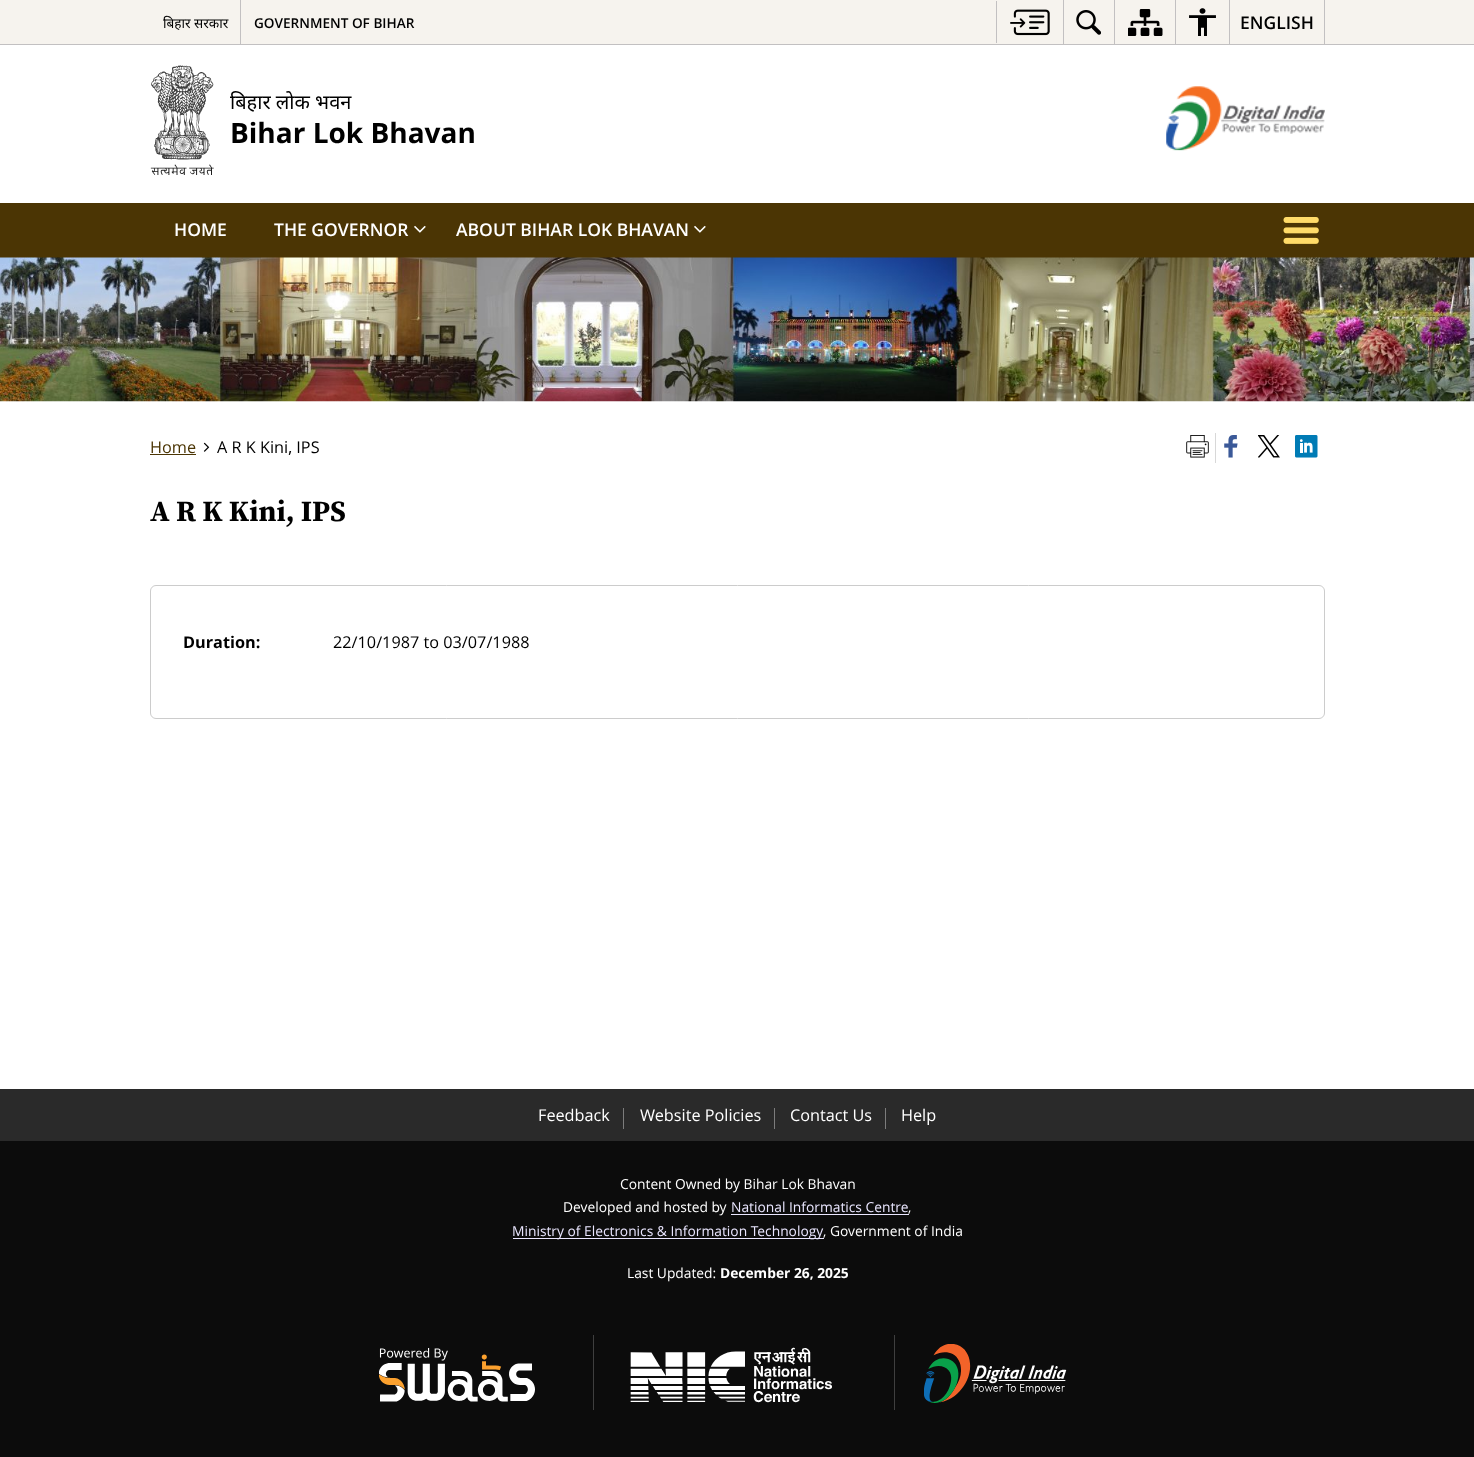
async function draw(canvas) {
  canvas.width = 1474;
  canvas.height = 1457;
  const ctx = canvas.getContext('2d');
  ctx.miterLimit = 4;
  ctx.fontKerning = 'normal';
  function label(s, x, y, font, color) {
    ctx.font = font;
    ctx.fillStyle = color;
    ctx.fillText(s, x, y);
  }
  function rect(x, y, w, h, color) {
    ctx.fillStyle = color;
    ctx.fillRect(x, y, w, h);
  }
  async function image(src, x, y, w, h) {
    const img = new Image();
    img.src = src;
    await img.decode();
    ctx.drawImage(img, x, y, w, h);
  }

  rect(0, 0, 1474, 1457, '#fff');
  rect(0, 0, 1474, 44, '#f6f3ee');
  rect(0, 44, 1474, 1, '#c2c0c1');
  rect(240, 0, 1, 44, '#c2c0c1');
  label('बिहार सरकार', 163, 28, '13.6px Noto Sans', '#000');
  label('GOVERNMENT OF BIHAR', 254, 28, '600 13.6px Open Sans', '#000');
  rect(996, 1, 1, 42, '#c2c0c1');
  await image('assets/img1.png', 1010, 9, 40, 27);
  rect(1063, 0, 1, 44, '#c2c0c1');
  await image('assets/img2.png', 1076, 10, 25, 25);
  rect(1114, 0, 1, 44, '#c2c0c1');
  await image('assets/img3.png', 1128, 9, 35, 27);
  rect(1175, 0, 1, 44, '#c2c0c1');
  await image('assets/img4.png', 1189, 8, 27, 28);
  rect(1324, 0, 1, 44, '#c2c0c1');
  rect(1229, 0, 1, 44, '#c2c0c1');
  label('ENGLISH', 1240, 29, '600 17.5px Open Sans', '#000');
  await image('assets/img5.png', 150, 65, 64, 110);
  label('बिहार लोक भवन', 230, 109, '20px Noto Sans', '#000');
  label('Bihar Lok Bhavan', 230, 143, 'bold 28px Open Sans', '#000');
  await image('assets/img6.png', 1166, 86, 159, 65);
  rect(0, 203, 1474, 55, '#4b3504');
  label('HOME', 174, 236, '600 17.5px Open Sans', '#fff');
  label('THE GOVERNOR', 274, 236, '600 17.5px Open Sans', '#fff');
  await image('assets/img7.png', 414, 225, 12, 8);
  label('ABOUT BIHAR LOK BHAVAN', 456, 236, '600 17.5px Open Sans', '#fff');
  await image('assets/img7.png', 694, 225, 12, 8);
  await image('assets/img8.png', 1283, 217, 36, 27);
  await image('assets/img9.png', 0, 257, 1474, 145);
  label('Home', 150, 453, '16.25px Open Sans', '#4b3504');
  rect(150, 454, 46, 1, '#4b3504');
  await image('assets/img10.png', 203, 442, 7, 10);
  label('A R K Kini, IPS', 217, 453, '16.25px Open Sans', '#000');
  rect(1215, 433, 1, 30, '#d8d8d8');
  await image('assets/img11.png', 1186, 435, 23, 23);
  await image('assets/img12.png', 1224, 435, 14, 23);
  await image('assets/img13.png', 1258, 435, 22, 23);
  await image('assets/img14.png', 1295, 435, 23, 23);
  label('A R K Kini, IPS', 150, 521, 'bold 29.25px Source Serif Pro', '#000');
  ctx.beginPath();
  ctx.roundRect(150.5, 585.5, 1174, 133, 5.5);
  ctx.strokeStyle = '#ccc';
  ctx.stroke();
  label('Duration:', 183, 648, 'bold 16.25px Open Sans', '#000');
  label('22/10/1987 to 03/07/1988', 333, 648, '16.25px Open Sans', '#000');
  rect(0, 1089, 1474, 52, '#2a2a2a');
  label('Feedback', 538, 1121, '16.25px Open Sans', '#fff');
  rect(623, 1108, 1, 21, '#7c7c7c');
  label('Website Policies', 640, 1121, '16.25px Open Sans', '#fff');
  rect(774, 1108, 1, 21, '#7c7c7c');
  label('Contact Us', 790, 1121, '16.25px Open Sans', '#fff');
  rect(885, 1108, 1, 21, '#7c7c7c');
  label('Help', 901, 1121, '16.25px Open Sans', '#fff');
  rect(0, 1141, 1474, 316, '#0c0c0c');
  label('Content Owned by Bihar Lok Bhavan', 620, 1189, '13.8px Open Sans', '#fff');
  label('Developed and hosted by', 563, 1212, '13.8px Open Sans', '#fff');
  label('National Informatics Centre', 731, 1212, '13.8px Open Sans', '#eae6ff');
  rect(731, 1214, 178, 1, '#eae6ff');
  label(',', 908, 1212, '13.8px Open Sans', '#fff');
  rect(513, 1238, 311, 1, '#eae6ff');
  label('Ministry of Electronics & Information Technology', 512, 1236, '13.8px Open Sans', '#eae6ff');
  label(', Government of India', 823, 1236, '13.8px Open Sans', '#fff');
  label('Last Updated:', 627, 1278, '13.8px Open Sans', '#fff');
  label('December 26, 2025', 720, 1278, 'bold 13.8px Open Sans', '#fff');
  await image('assets/img15.png', 379, 1348, 156, 54);
  rect(593, 1335, 1, 75, '#3f3f3f');
  await image('assets/img16.png', 630, 1347, 202, 56);
  rect(894, 1335, 1, 75, '#3f3f3f');
  await image('assets/img17.png', 924, 1344, 143, 59);
}

draw(document.querySelector('canvas'));
